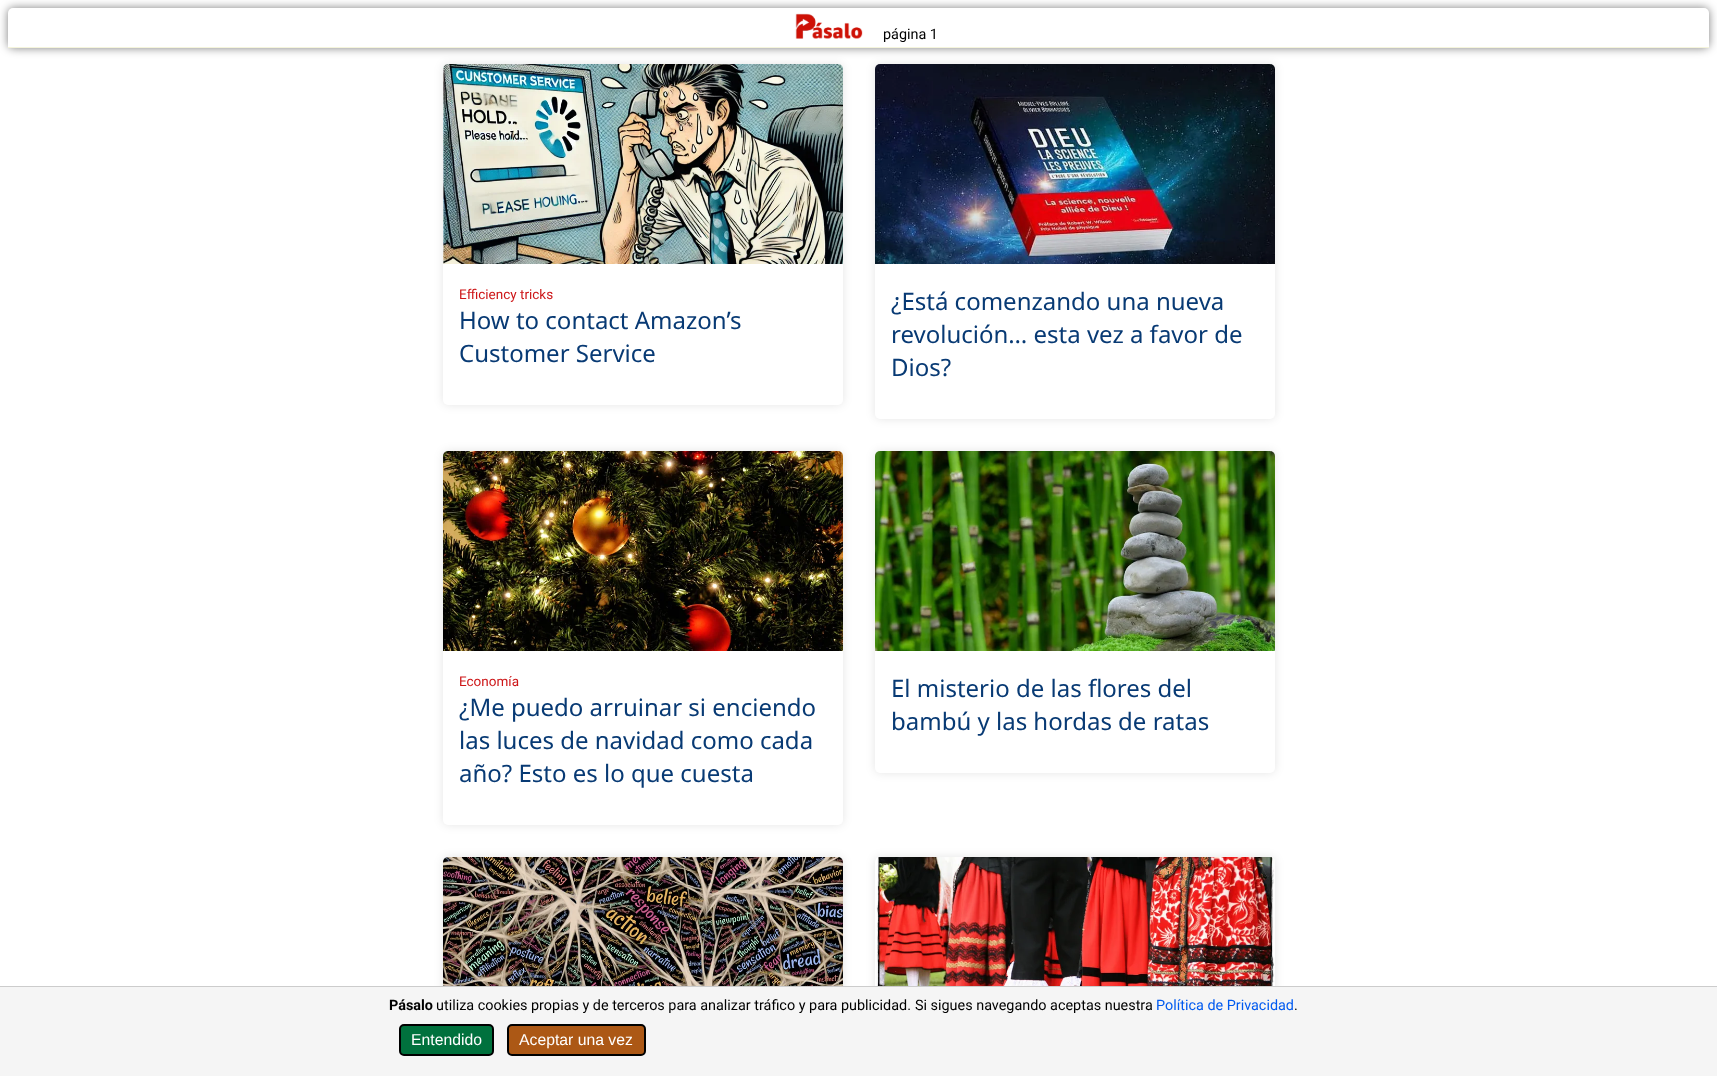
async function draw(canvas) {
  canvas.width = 1717;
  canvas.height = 1076;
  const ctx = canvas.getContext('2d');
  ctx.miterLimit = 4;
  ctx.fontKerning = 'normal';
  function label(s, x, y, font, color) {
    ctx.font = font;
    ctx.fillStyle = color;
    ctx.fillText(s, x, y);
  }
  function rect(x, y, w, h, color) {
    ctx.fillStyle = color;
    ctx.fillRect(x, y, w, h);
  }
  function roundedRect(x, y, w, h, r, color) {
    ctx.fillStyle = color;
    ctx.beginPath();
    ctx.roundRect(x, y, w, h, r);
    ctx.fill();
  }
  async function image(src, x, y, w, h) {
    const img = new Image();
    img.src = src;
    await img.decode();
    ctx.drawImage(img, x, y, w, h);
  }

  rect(0, 0, 1717, 1076, '#fff');
  ctx.fillStyle = '#00000080';
  ctx.filter = 'blur(5px)';
  ctx.beginPath();
  ctx.roundRect(8, 8, 1701, 40, 5);
  ctx.fill();
  ctx.filter = 'none';
  ctx.fillStyle = '#fff';
  ctx.beginPath();
  ctx.roundRect(8, 8, 1701, 40, [5, 5, 0, 0]);
  ctx.fill();
  rect(8, 47, 1701, 1, '#f5f5dc');
  await image('assets/img1.png', 795, 13, 68, 26);
  label('página 1', 883, 39, '14.4px Roboto', '#000');
  ctx.fillStyle = '#0000001a';
  ctx.filter = 'blur(5px)';
  ctx.beginPath();
  ctx.roundRect(443, 64, 400, 341, 5);
  ctx.fill();
  ctx.filter = 'none';
  roundedRect(443, 64, 400, 341, 5, '#fff');
  await image('assets/img2.png', 443, 64, 400, 200);
  label('Efficiency tricks', 459, 299, '13.5px Roboto', '#cd1618');
  label('How to contact Amazon’s', 459, 329, '24px Noto Sans', '#083a74');
  label('Customer Service', 459, 362, '24px Noto Sans', '#083a74');
  ctx.fillStyle = '#0000001a';
  ctx.filter = 'blur(5px)';
  ctx.beginPath();
  ctx.roundRect(875, 64, 400, 355, 5);
  ctx.fill();
  ctx.filter = 'none';
  roundedRect(875, 64, 400, 355, 5, '#fff');
  await image('assets/img3.png', 875, 64, 400, 200);
  label('¿Está comenzando una nueva', 891, 310, '24px Noto Sans', '#083a74');
  label('revolución… esta vez a favor de', 891, 343, '24px Noto Sans', '#083a74');
  label('Dios?', 891, 376, '24px Noto Sans', '#083a74');
  ctx.fillStyle = '#0000001a';
  ctx.filter = 'blur(5px)';
  ctx.beginPath();
  ctx.roundRect(443, 451, 400, 374, 5);
  ctx.fill();
  ctx.filter = 'none';
  roundedRect(443, 451, 400, 374, 5, '#fff');
  await image('assets/img4.png', 443, 451, 400, 200);
  label('Economía', 459, 686, '13.5px Roboto', '#cd1618');
  label('¿Me puedo arruinar si enciendo', 459, 716, '24px Noto Sans', '#083a74');
  label('las luces de navidad como cada', 459, 749, '24px Noto Sans', '#083a74');
  label('año? Esto es lo que cuesta', 459, 782, '24px Noto Sans', '#083a74');
  ctx.fillStyle = '#0000001a';
  ctx.filter = 'blur(5px)';
  ctx.beginPath();
  ctx.roundRect(875, 451, 400, 322, 5);
  ctx.fill();
  ctx.filter = 'none';
  roundedRect(875, 451, 400, 322, 5, '#fff');
  await image('assets/img5.png', 875, 451, 400, 200);
  label('El misterio de las flores del', 891, 697, '24px Noto Sans', '#083a74');
  label('bambú y las hordas de ratas', 891, 730, '24px Noto Sans', '#083a74');
  ctx.fillStyle = '#0000001a';
  ctx.filter = 'blur(5px)';
  ctx.beginPath();
  ctx.roundRect(443, 857, 400, 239, 5);
  ctx.fill();
  ctx.filter = 'none';
  await image('assets/img6.png', 443, 857, 400, 129);
  ctx.filter = 'blur(5px)';
  ctx.beginPath();
  ctx.roundRect(875, 857, 400, 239, 5);
  ctx.fill();
  ctx.filter = 'none';
  roundedRect(875, 857, 400, 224, 5, '#fff');
  await image('assets/img7.png', 876, 857, 399, 129);
  rect(0, 987, 1717, 89, '#f5f5f5');
  rect(0, 986, 1717, 1, '#ccc');
  label('Pásalo', 389, 1010, 'bold 14.4px Roboto', '#000');
  label('utiliza cookies propias y de terceros para analizar tráfico y para publicidad.', 436, 1010, '14.4px Roboto', '#000');
  label('Si sigues navegando aceptas nuestra', 915, 1010, '14.4px Roboto', '#000');
  label('Política de Privacidad', 1156, 1010, '14.4px Roboto', '#005af0');
  label('.', 1294, 1010, '14.4px Roboto', '#000');
  ctx.fillStyle = '#00713d';
  ctx.beginPath();
  ctx.roundRect(400, 1025, 93, 30, 4);
  ctx.fill();
  ctx.strokeStyle = '#000';
  ctx.lineWidth = 2;
  ctx.stroke();
  label('Entendido', 411, 1045, '15.75px Liberation Sans', '#fff');
  ctx.fillStyle = '#ac5815';
  ctx.beginPath();
  ctx.roundRect(508, 1025, 137, 30, 4);
  ctx.fill();
  ctx.stroke();
  label('Aceptar una vez', 519, 1045, '15.75px Liberation Sans', '#fff');
}

draw(document.querySelector('canvas'));
